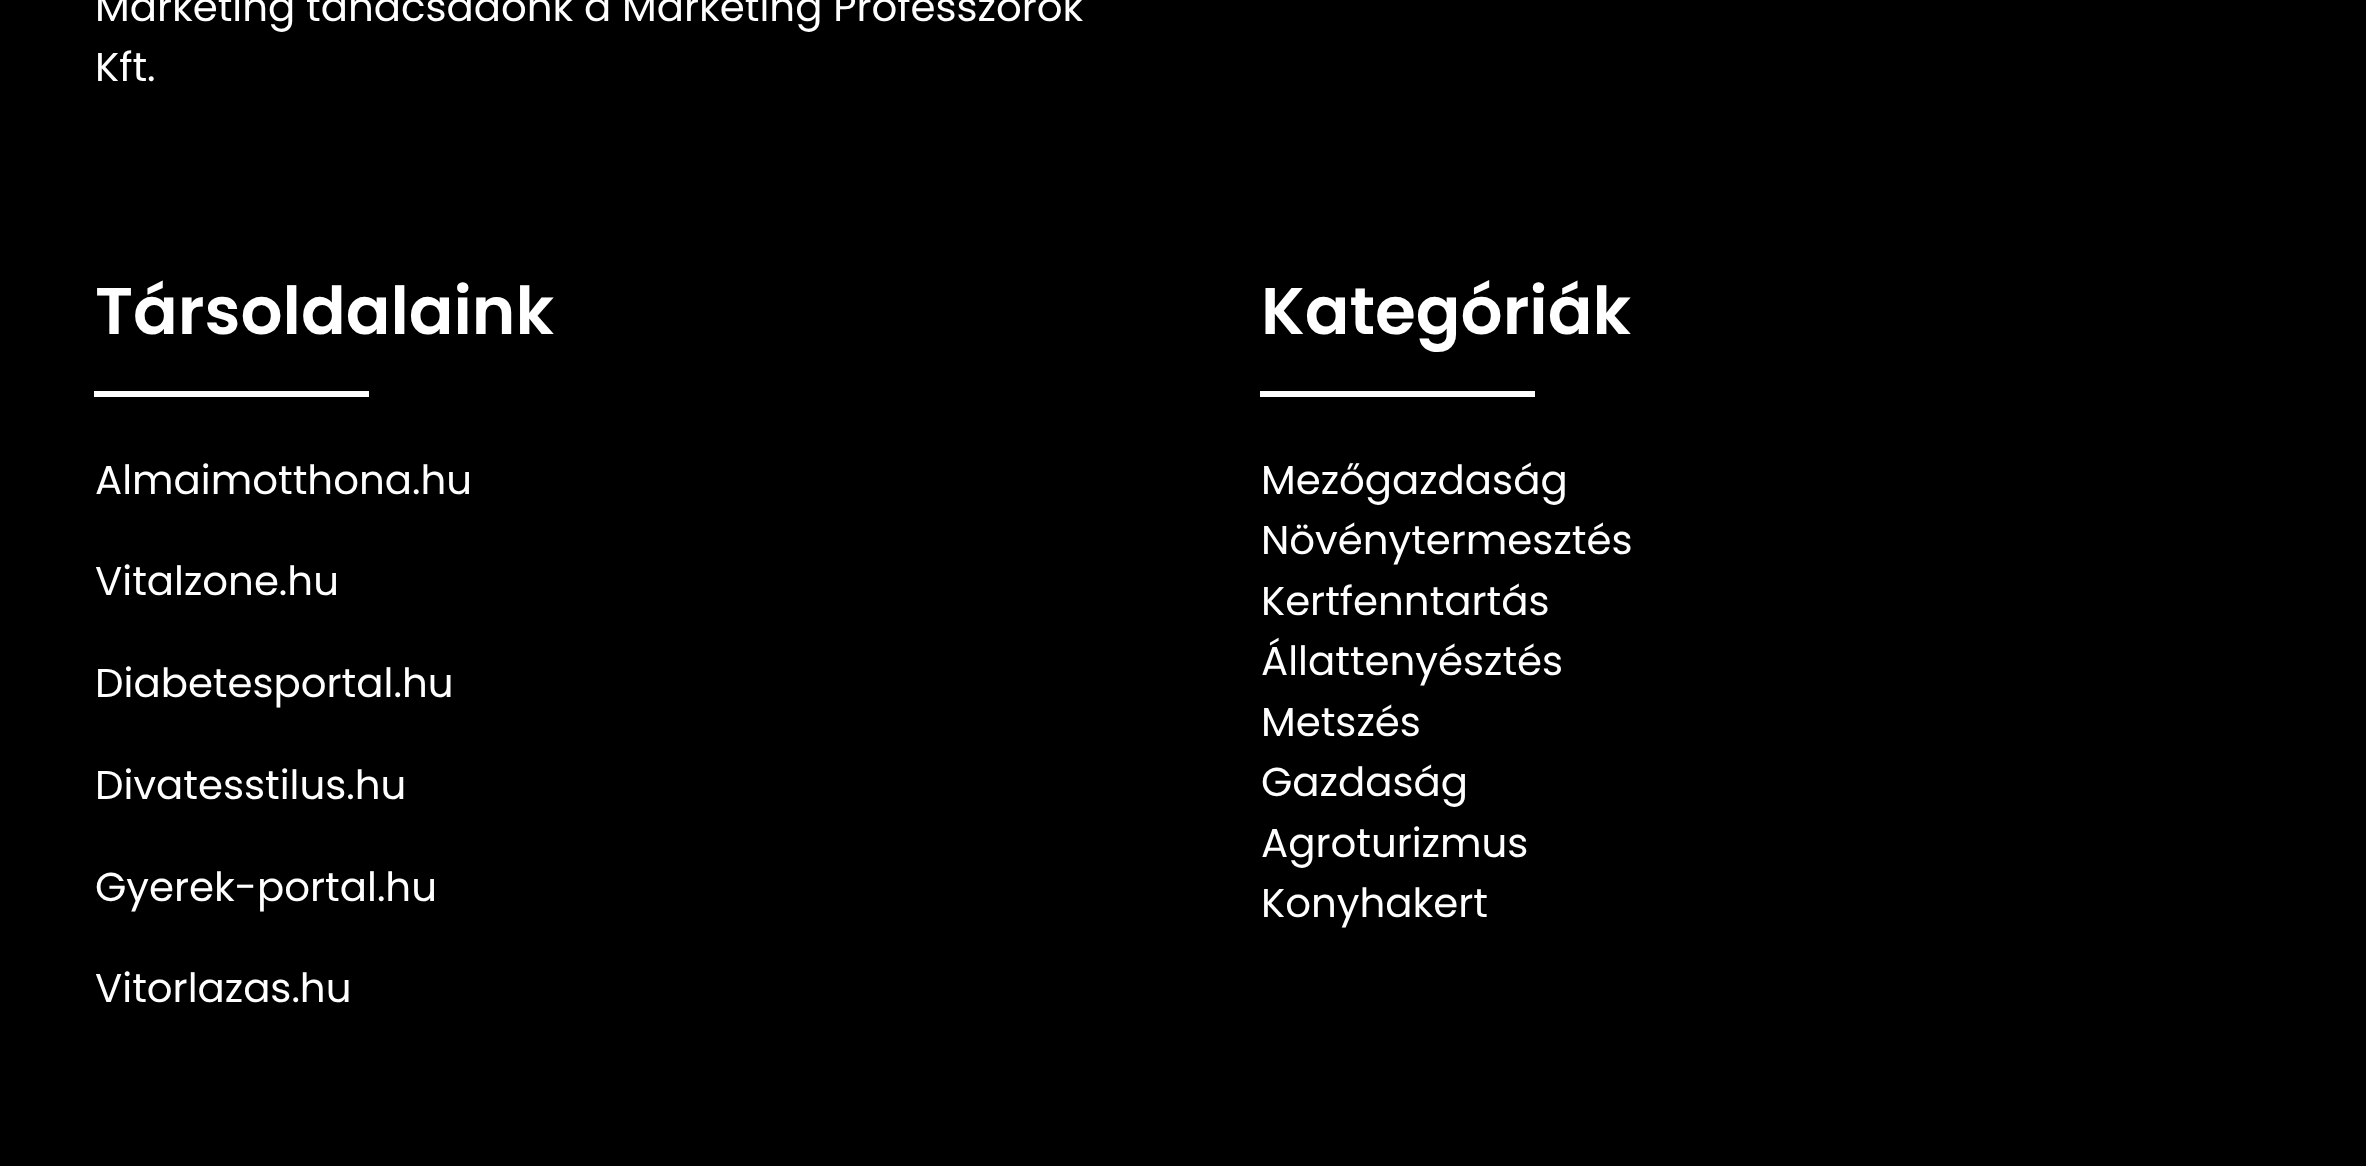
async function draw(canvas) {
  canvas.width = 2366;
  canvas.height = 1166;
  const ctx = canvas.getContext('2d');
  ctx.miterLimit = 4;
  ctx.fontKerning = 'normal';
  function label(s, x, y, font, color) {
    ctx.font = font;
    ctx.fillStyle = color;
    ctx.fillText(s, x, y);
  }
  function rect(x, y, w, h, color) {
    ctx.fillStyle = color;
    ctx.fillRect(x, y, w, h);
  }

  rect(0, 0, 2366, 1166, '#000');
  label('Marketing tanácsadónk a Marketing Professzorok', 95, 21, '40.3px Poppins', '#fff');
  label('Kft.', 95, 81, '40.3px Poppins', '#fff');
  label('Társoldalaink', 95, 334, '600 66px Poppins', '#fff');
  rect(94, 391, 275, 6, '#fff');
  label('Almaimotthona.hu', 95, 494, '40.3px Poppins', '#fff');
  label('Vitalzone.hu', 95, 595, '40.3px Poppins', '#fff');
  label('Diabetesportal.hu', 95, 697, '40.3px Poppins', '#fff');
  label('Divatesstilus.hu', 95, 799, '40.3px Poppins', '#fff');
  label('Gyerek-portal.hu', 95, 901, '40.3px Poppins', '#fff');
  label('Vitorlazas.hu', 95, 1002, '40.3px Poppins', '#fff');
  label('Kategóriák', 1261, 334, '600 66px Poppins', '#fff');
  rect(1260, 391, 275, 6, '#fff');
  label('Mezőgazdaság', 1261, 494, '40.3px Poppins', '#fff');
  label('Növénytermesztés', 1261, 554, '40.3px Poppins', '#fff');
  label('Kertfenntartás', 1261, 615, '40.3px Poppins', '#fff');
  label('Állattenyésztés', 1261, 675, '40.3px Poppins', '#fff');
  label('Metszés', 1261, 736, '40.3px Poppins', '#fff');
  label('Gazdaság', 1261, 796, '40.3px Poppins', '#fff');
  label('Agroturizmus', 1261, 857, '40.3px Poppins', '#fff');
  label('Konyhakert', 1261, 917, '40.3px Poppins', '#fff');
}

draw(document.querySelector('canvas'));
